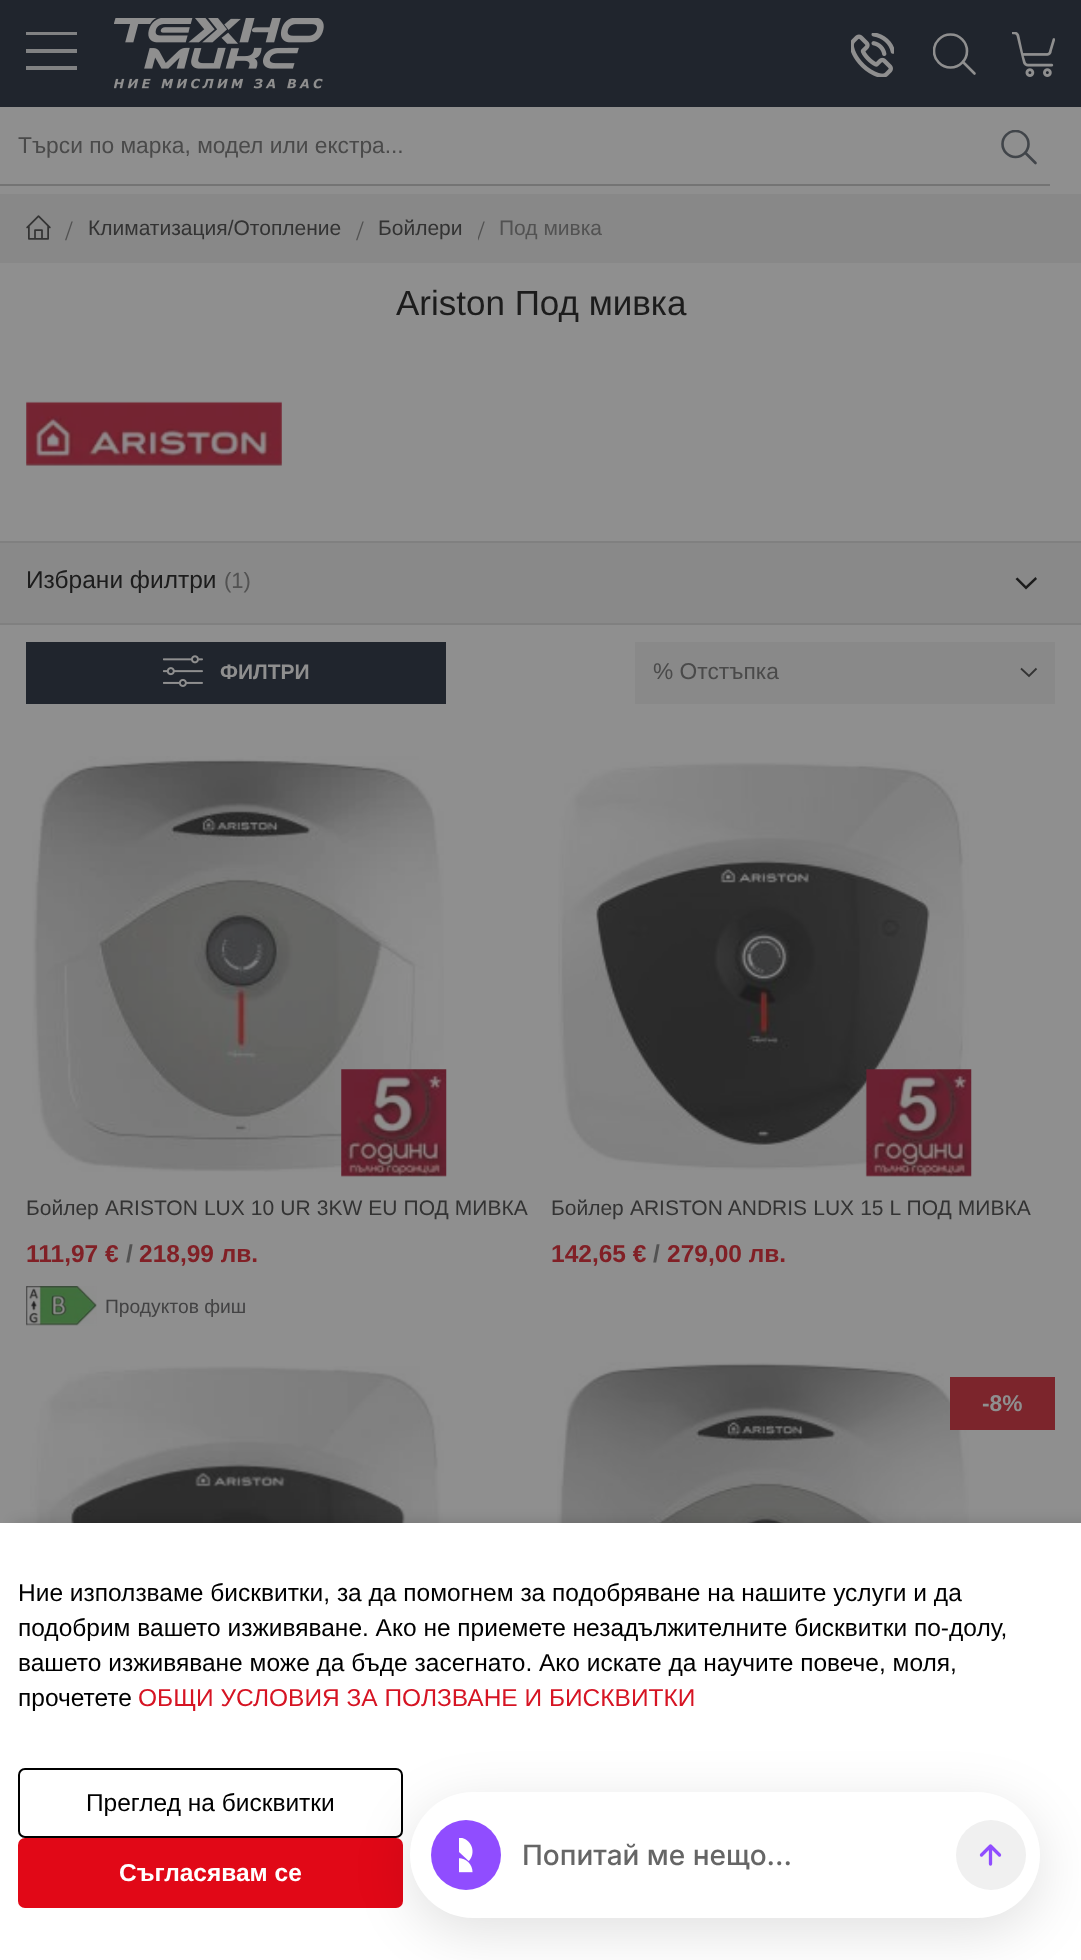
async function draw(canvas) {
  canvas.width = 1081;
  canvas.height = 1960;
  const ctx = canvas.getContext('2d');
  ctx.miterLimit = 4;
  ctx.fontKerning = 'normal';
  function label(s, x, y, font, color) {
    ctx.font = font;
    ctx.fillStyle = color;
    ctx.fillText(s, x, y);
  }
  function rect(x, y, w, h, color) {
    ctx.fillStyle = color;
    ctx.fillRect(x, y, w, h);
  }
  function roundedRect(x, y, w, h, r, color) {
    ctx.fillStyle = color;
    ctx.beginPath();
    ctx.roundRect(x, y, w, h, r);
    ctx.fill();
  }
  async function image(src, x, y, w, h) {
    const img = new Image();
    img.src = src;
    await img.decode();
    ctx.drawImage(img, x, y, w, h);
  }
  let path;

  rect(0, 0, 1081, 1960, '#8f8f8f');
  rect(0, 0, 1081, 107, '#20252d');
  await image('assets/img1.png', 851, 33, 43, 44);
  rect(26, 32, 51, 3, '#818283');
  rect(26, 49, 51, 4, '#818283');
  rect(26, 66, 51, 4, '#818283');
  await image('assets/img2.png', 114, 18, 210, 71);
  await image('assets/img3.png', 1012, 32, 43, 45);
  ctx.save();
  ctx.beginPath();
  ctx.rect(933, 33, 44, 42);
  ctx.clip();
  ctx.beginPath();
  ctx.arc(950.5, 51, 16.5, 0, 2 * Math.PI);
  ctx.strokeStyle = '#8f8f8f';
  ctx.lineWidth = 2.6;
  ctx.stroke();
  ctx.restore();
  path = new Path2D('M963 62L974.5 73.5');
  ctx.strokeStyle = '#8f8f8f';
  ctx.lineWidth = 2.6;
  ctx.lineCap = 'round';
  ctx.stroke(path);
  rect(0, 184, 1050, 2, '#747474');
  label('Търси по марка, модел или екстра...', 18, 153, '22.75px Liberation Sans', '#4a4a4a');
  ctx.save();
  ctx.beginPath();
  ctx.rect(1001, 130, 37, 35);
  ctx.clip();
  ctx.beginPath();
  ctx.arc(1015.5, 144, 13, 0, 2 * Math.PI);
  ctx.strokeStyle = '#41454a';
  ctx.stroke();
  ctx.restore();
  path = new Path2D('M1026 153.5L1035.5 163');
  ctx.strokeStyle = '#41454a';
  ctx.stroke(path);
  rect(0, 194, 1081, 69, '#888');
  await image('assets/img4.png', 26, 215, 25, 25);
  label('/', 65, 240, '28px Liberation Serif', '#525252');
  label('Климатизация/Отопление', 88, 235, '21px Liberation Sans', '#333');
  label('/', 356, 240, '28px Liberation Serif', '#525252');
  label('Бойлери', 378, 235, '21px Liberation Sans', '#333');
  ctx.save();
  ctx.beginPath();
  ctx.rect(478, 215, 7, 27);
  ctx.clip();
  label('/', 477, 240, '28px Liberation Serif', '#525252');
  ctx.restore();
  label('Под мивка', 499, 235, '21px Liberation Sans', '#525252');
  label('Ariston Под мивка', 396, 315, '35px Liberation Sans', '#1c1c1c');
  await image('assets/img5.png', 26, 401, 256, 65);
  rect(0, 543, 1081, 80, '#898989');
  rect(0, 541, 1081, 2, '#808080');
  rect(0, 623, 1081, 2, '#808080');
  label('Избрани филтри', 26, 588, '24.5px Liberation Sans', '#1c1c1c');
  label('(1)', 224, 588, '22px Liberation Sans', '#525252');
  ctx.fillStyle = '#1c1c1c';
  path = new Path2D('M1026 586L1017.5 577.5L1015.5 579L1026 589.5L1037 579L1035.5 577Z');
  ctx.fill(path);
  rect(26, 642, 420, 62, '#20252d');
  await image('assets/img6.png', 163, 655, 40, 32);
  label('ФИЛТРИ', 220, 679, 'bold 21px Liberation Sans', '#8f8f8f');
  rect(635, 642, 420, 62, '#898989');
  path = new Path2D('M1021 668.5L1029 676L1036.5 668.5');
  ctx.strokeStyle = '#333';
  ctx.lineWidth = 1.8;
  ctx.lineCap = 'butt';
  ctx.stroke(path);
  label('% Отстъпка', 653, 679, '22.75px Liberation Sans', '#4a4a4a');
  await image('assets/img7.png', 32, 756, 412, 416);
  await image('assets/img8.png', 341, 1069, 106, 108);
  ctx.wordSpacing = '0.25px';
  label('Бойлер ARISTON LUX 10 UR 3KW EU ПОД МИВКА', 26, 1215, '21px Liberation Sans', '#333');
  ctx.wordSpacing = '0px';
  label('111,97 €', 26, 1262, 'bold 24.5px Liberation Sans', '#812026');
  label('/', 126, 1262, 'bold 24.5px Liberation Sans', '#525252');
  label('218,99 лв.', 139, 1262, 'bold 24.5px Liberation Sans', '#812026');
  await image('assets/img9.png', 26, 1286, 71, 40);
  label('Продуктов фиш', 105, 1313, '19.25px Liberation Sans', '#424243');
  await image('assets/img10.png', 558, 762, 411, 408);
  await image('assets/img11.png', 865, 1069, 107, 108);
  ctx.wordSpacing = '0.25px';
  label('Бойлер ARISTON ANDRIS LUX 15 L ПОД МИВКА', 551, 1215, '21px Liberation Sans', '#333');
  ctx.wordSpacing = '0px';
  label('142,65 €', 551, 1262, 'bold 24.5px Liberation Sans', '#812026');
  label('/', 653, 1262, 'bold 24.5px Liberation Sans', '#525252');
  label('279,00 лв.', 667, 1262, 'bold 24.5px Liberation Sans', '#812026');
  await image('assets/img12.png', 30, 1366, 414, 157);
  await image('assets/img13.png', 557, 1362, 412, 161);
  rect(950, 1377, 105, 53, '#7c252c');
  label('-8%', 982, 1411, 'bold 22.75px Liberation Sans', '#8f8f8f');
  ctx.fillStyle = '#00000026';
  ctx.filter = 'blur(7px)';
  ctx.beginPath();
  ctx.rect(14, 1523, 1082, 437);
  ctx.fill();
  ctx.filter = 'none';
  rect(0, 1523, 1081, 437, '#fff');
  label('Ние използваме бисквитки, за да помогнем за подобряване на нашите услуги и да', 18, 1601, '24.5px Liberation Sans', '#000');
  label('подобрим вашето изживяване. Ако не приемете незадължителните бисквитки по-долу,', 18, 1636, '24.5px Liberation Sans', '#000');
  label('вашето изживяване може да бъде засегнато. Ако искате да научите повече, моля,', 18, 1671, '24.5px Liberation Sans', '#000');
  label('прочетете', 18, 1706, '24.5px Liberation Sans', '#000');
  label('ОБЩИ УСЛОВИЯ ЗА ПОЛЗВАНЕ И БИСКВИТКИ', 138, 1706, '24.5px Liberation Sans', '#d61423');
  ctx.beginPath();
  ctx.roundRect(19, 1769, 383, 68, 6);
  ctx.strokeStyle = '#000';
  ctx.lineWidth = 2;
  ctx.stroke();
  label('Преглед на бисквитки', 86, 1811, '24.5px Liberation Sans', '#000');
  roundedRect(18, 1838, 385, 70, 7, '#e10817');
  label('Съгласявам се', 119, 1881, 'bold 24.5px Liberation Sans', '#fff');
  ctx.fillStyle = '#0000001f';
  ctx.filter = 'blur(28px)';
  ctx.beginPath();
  ctx.roundRect(410, 1806, 630, 126, 63);
  ctx.fill();
  ctx.filter = 'none';
  roundedRect(410, 1792, 630, 126, 63, '#fff');
  ctx.fillStyle = '#904dff';
  ctx.beginPath();
  ctx.arc(466, 1855, 35, 0, 2 * Math.PI);
  ctx.fill();
  await image('assets/img14.png', 459, 1838, 14, 35);
  label('Попитай ме нещо...', 522, 1865, '500 28px Inter', '#666');
  ctx.fillStyle = '#f0f0f0';
  ctx.beginPath();
  ctx.arc(991, 1855, 35, 0, 2 * Math.PI);
  ctx.fill();
  path = new Path2D('M990.5 1864V1846M981.5 1855L990.5 1846L999.5 1855');
  ctx.strokeStyle = '#904dff';
  ctx.lineWidth = 3.3;
  ctx.lineCap = 'round';
  ctx.lineJoin = 'round';
  ctx.stroke(path);
}

draw(document.querySelector('canvas'));
